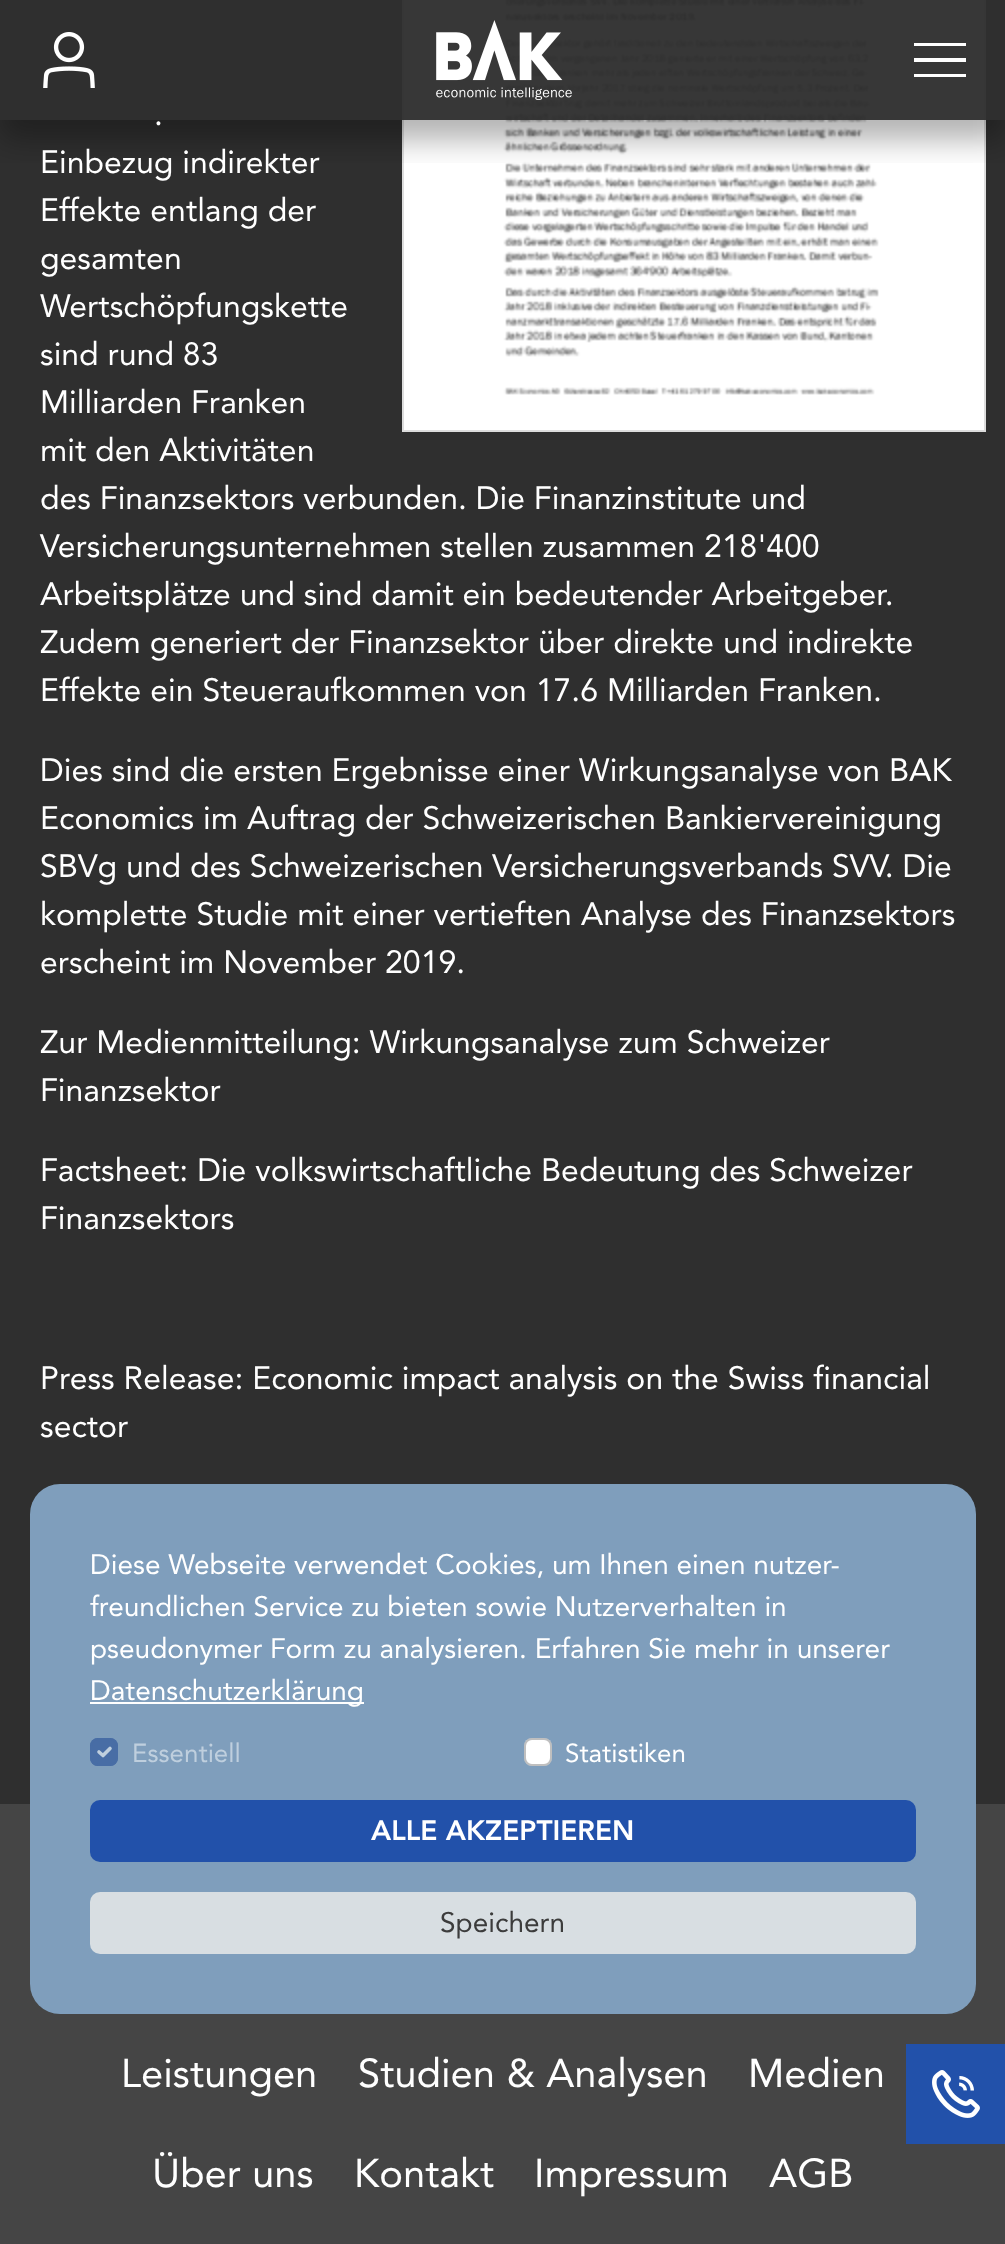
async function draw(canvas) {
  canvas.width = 1005;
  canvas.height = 2244;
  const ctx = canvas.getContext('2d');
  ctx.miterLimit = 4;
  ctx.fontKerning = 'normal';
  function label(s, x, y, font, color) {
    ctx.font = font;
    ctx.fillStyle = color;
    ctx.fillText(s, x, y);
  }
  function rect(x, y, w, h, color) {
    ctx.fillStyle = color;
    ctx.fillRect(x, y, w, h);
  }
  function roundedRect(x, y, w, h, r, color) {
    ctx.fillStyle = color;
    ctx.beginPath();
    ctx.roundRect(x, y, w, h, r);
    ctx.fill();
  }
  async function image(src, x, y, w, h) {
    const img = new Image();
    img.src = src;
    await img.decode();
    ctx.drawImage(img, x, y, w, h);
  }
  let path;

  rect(0, 0, 1005, 2244, '#2f2f2f');
  ctx.fillStyle = '#fff';
  ctx.beginPath();
  ctx.rect(403, -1, 582, 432);
  ctx.fill();
  ctx.strokeStyle = '#ddd';
  ctx.lineWidth = 2;
  ctx.stroke();
  await image('assets/img3.png', 503, 0, 376, 395);
  ctx.save();
  ctx.beginPath();
  ctx.rect(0, 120, 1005, 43);
  ctx.clip();
  ctx.fillStyle = '#0000004d';
  ctx.filter = 'blur(15px)';
  ctx.beginPath();
  ctx.rect(0, 20, 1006, 120);
  ctx.fill();
  ctx.filter = 'none';
  ctx.restore();
  rect(402, 0, 584, 120, '#2f2f2ff5');
  await image('assets/img1.png', 43, 32, 52, 56);
  await image('assets/img2.png', 436, 20, 136, 80);
  rect(914, 43, 52, 3, '#fff');
  rect(914, 74, 52, 3, '#fff');
  rect(914, 58, 52, 4, '#fff');
  label('.', 154, 125, '32px "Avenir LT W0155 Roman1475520"', '#fff');
  label('Einbezug indirekter', 40, 173, '32px "Avenir LT W0155 Roman1475520"', '#fff');
  label('Effekte entlang der', 40, 221, '32px "Avenir LT W0155 Roman1475520"', '#fff');
  label('gesamten', 40, 269, '32px "Avenir LT W0155 Roman1475520"', '#fff');
  label('Wertschöpfungskette', 40, 317, '32px "Avenir LT W0155 Roman1475520"', '#fff');
  label('sind rund 83', 40, 365, '32px "Avenir LT W0155 Roman1475520"', '#fff');
  label('Milliarden Franken', 40, 413, '32px "Avenir LT W0155 Roman1475520"', '#fff');
  label('mit den Aktivitäten', 40, 461, '32px "Avenir LT W0155 Roman1475520"', '#fff');
  label('des Finanzsektors verbunden. Die Finanzinstitute und', 40, 509, '32px "Avenir LT W0155 Roman1475520"', '#fff');
  label('Versicherungsunternehmen stellen zusammen 218\'400', 40, 557, '32px "Avenir LT W0155 Roman1475520"', '#fff');
  label('Arbeitsplätze und sind damit ein bedeutender Arbeitgeber.', 40, 605, '32px "Avenir LT W0155 Roman1475520"', '#fff');
  label('Zudem generiert der Finanzsektor über direkte und indirekte', 40, 653, '32px "Avenir LT W0155 Roman1475520"', '#fff');
  label('Effekte ein Steueraufkommen von 17.6 Milliarden Franken.', 40, 701, '32px "Avenir LT W0155 Roman1475520"', '#fff');
  label('Dies sind die ersten Ergebnisse einer Wirkungsanalyse von BAK', 40, 781, '32px "Avenir LT W0155 Roman1475520"', '#fff');
  label('Economics im Auftrag der Schweizerischen Bankiervereinigung', 40, 829, '32px "Avenir LT W0155 Roman1475520"', '#fff');
  label('SBVg und des Schweizerischen Versicherungsverbands SVV. Die', 40, 877, '32px "Avenir LT W0155 Roman1475520"', '#fff');
  label('komplette Studie mit einer vertieften Analyse des Finanzsektors', 40, 925, '32px "Avenir LT W0155 Roman1475520"', '#fff');
  label('erscheint im November 2019.', 40, 973, '32px "Avenir LT W0155 Roman1475520"', '#fff');
  label('Zur Medienmitteilung: Wirkungsanalyse zum Schweizer', 40, 1053, '32px "Avenir LT W0155 Roman1475520"', '#fff');
  label('Finanzsektor', 40, 1101, '32px "Avenir LT W0155 Roman1475520"', '#fff');
  label('Factsheet: Die volkswirtschaftliche Bedeutung des Schweizer', 40, 1181, '32px "Avenir LT W0155 Roman1475520"', '#fff');
  label('Finanzsektors', 40, 1229, '32px "Avenir LT W0155 Roman1475520"', '#fff');
  label('Press Release: Economic impact analysis on the Swiss financial', 40, 1389, '32px "Avenir LT W0155 Roman1475520"', '#fff');
  label('sector', 40, 1437, '32px "Avenir LT W0155 Roman1475520"', '#fff');
  rect(0, 1804, 1005, 440, '#454545');
  roundedRect(30, 1484, 946, 530, 30, '#7f9ebc');
  label('Diese Webseite verwendet Cookies, um Ihnen einen nutzer-', 90, 1574, '28px "Avenir LT W0155 Roman1475520"', '#fff');
  label('freundlichen Service zu bieten sowie Nutzerverhalten in', 90, 1616, '28px "Avenir LT W0155 Roman1475520"', '#fff');
  label('pseudonymer Form zu analysieren. Erfahren Sie mehr in unserer', 90, 1658, '28px "Avenir LT W0155 Roman1475520"', '#fff');
  rect(90, 1702, 274, 2, '#fff');
  label('Datenschutzerklärung', 90, 1700, '28px "Avenir LT W0155 Roman1475520"', '#fff');
  roundedRect(90, 1738, 28, 28, 8, '#486da5');
  path = new Path2D('M99 1752L103 1755.5L110 1748.5');
  ctx.strokeStyle = '#bfcfde';
  ctx.lineWidth = 3.6;
  ctx.lineCap = 'round';
  ctx.lineJoin = 'round';
  ctx.stroke(path);
  ctx.beginPath();
  ctx.roundRect(91, 1739, 26, 26, 7);
  ctx.strokeStyle = '#486da5';
  ctx.lineWidth = 2;
  ctx.lineJoin = 'miter';
  ctx.stroke();
  label('Essentiell', 132, 1762, '26px "Avenir LT W0155 Roman1475520"', '#bfcfde');
  roundedRect(524, 1738, 28, 28, 8, '#fff');
  ctx.beginPath();
  ctx.roundRect(525, 1739, 26, 26, 7);
  ctx.strokeStyle = '#00000040';
  ctx.stroke();
  label('Statistiken', 565, 1762, '26px "Avenir LT W0155 Roman1475520"', '#fff');
  roundedRect(90, 1800, 826, 62, 10, '#2251aa');
  label('ALLE AKZEPTIEREN', 371, 1840, '900 28px "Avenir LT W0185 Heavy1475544"', '#fff');
  roundedRect(90, 1892, 826, 62, 10, '#d8dee2');
  label('Speichern', 440, 1932, '28px "Avenir LT W0155 Roman1475520"', '#3c3c3c');
  label('Leistungen', 121, 2087, '40px "Avenir LT W0155 Roman1475520"', '#fff');
  label('Studien & Analysen', 358, 2087, '40px "Avenir LT W0155 Roman1475520"', '#fff');
  label('Medien', 748, 2087, '40px "Avenir LT W0155 Roman1475520"', '#fff');
  label('Über uns', 152, 2187, '40px "Avenir LT W0155 Roman1475520"', '#fff');
  label('Kontakt', 354, 2187, '40px "Avenir LT W0155 Roman1475520"', '#fff');
  label('Impressum', 534, 2187, '40px "Avenir LT W0155 Roman1475520"', '#fff');
  label('AGB', 769, 2187, '40px "Avenir LT W0155 Roman1475520"', '#fff');
  rect(906, 2044, 99, 100, '#2251aa');
  await image('assets/img4.png', 932, 2070, 48, 48);
}

draw(document.querySelector('canvas'));
